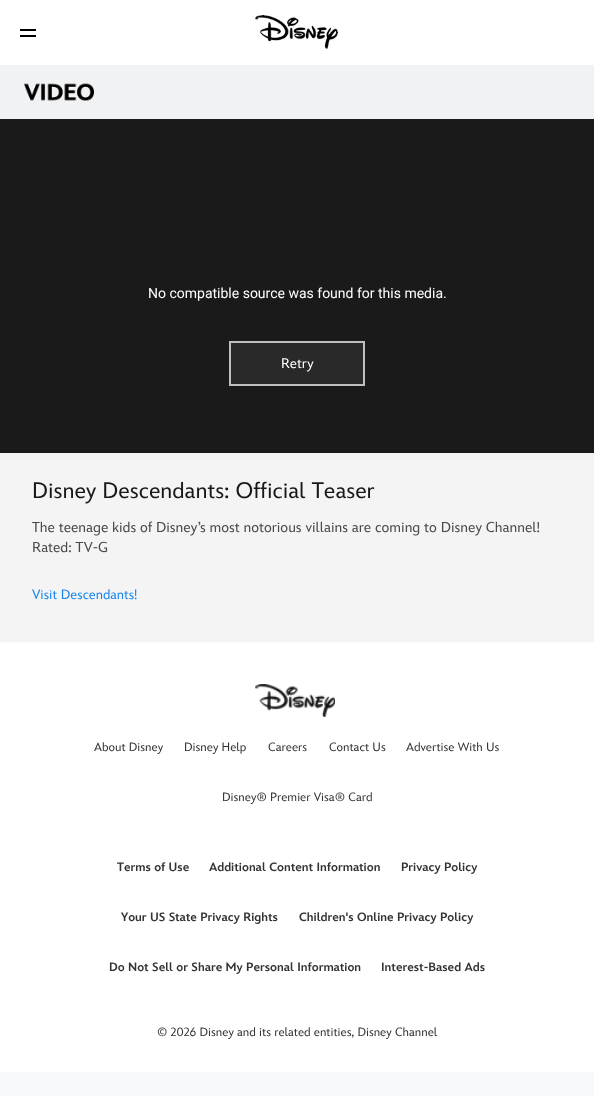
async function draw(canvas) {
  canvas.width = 594;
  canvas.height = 1096;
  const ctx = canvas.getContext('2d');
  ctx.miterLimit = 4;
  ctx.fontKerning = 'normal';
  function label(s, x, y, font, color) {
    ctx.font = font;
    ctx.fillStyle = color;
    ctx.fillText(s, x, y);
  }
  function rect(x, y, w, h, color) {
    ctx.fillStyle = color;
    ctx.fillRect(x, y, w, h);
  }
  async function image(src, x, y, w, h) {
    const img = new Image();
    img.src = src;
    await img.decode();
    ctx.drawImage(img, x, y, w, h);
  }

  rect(0, 0, 594, 1096, '#f8f9fa');
  rect(0, 0, 594, 65, '#fff');
  rect(20, 29, 16, 2, '#000');
  rect(20, 35, 16, 2, '#000');
  await image('assets/img1.png', 255, 15, 83, 34);
  rect(0, 65, 594, 54, '#f1f2f3');
  await image('assets/img2.png', 24, 83, 70, 18);
  rect(0, 453, 594, 189, '#f4f4f4');
  rect(0, 119, 594, 334, '#1a1a1a');
  label('No compatible source was found for this media.', 148, 298, '14px Roboto', '#fff');
  ctx.fillStyle = '#292929';
  ctx.beginPath();
  ctx.rect(230, 342, 134, 43);
  ctx.fill();
  ctx.strokeStyle = '#bfbfbf';
  ctx.lineWidth = 2;
  ctx.stroke();
  label('Retry', 281, 368, '14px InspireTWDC', '#fff');
  label('Disney Descendants: Official Teaser', 32, 498, '22.4px InspireTWDC', '#181818');
  label('The teenage kids of Disney’s most notorious villains are coming to Disney Channel!', 32, 532, '14.4px InspireTWDC', '#494949');
  label('Rated: TV-G', 32, 552, '14.4px InspireTWDC', '#494949');
  label('Visit Descendants!', 32, 599, '13.5px InspireTWDC', '#1786eb');
  rect(0, 642, 594, 430, '#fff');
  await image('assets/img3.png', 255, 684, 80, 33);
  label('About Disney', 94, 751, '12px InspireTWDC', '#333');
  label('Disney Help', 184, 751, '12px InspireTWDC', '#333');
  label('Careers', 268, 751, '12px InspireTWDC', '#333');
  label('Contact Us', 329, 751, '12px InspireTWDC', '#333');
  label('Advertise With Us', 406, 751, '12px InspireTWDC', '#333');
  label('Disney® Premier Visa® Card', 222, 801, '12px InspireTWDC', '#333');
  label('Terms of Use', 117, 871, '900 12px InspireTWDC', '#333');
  label('Additional Content Information', 209, 871, '900 12px InspireTWDC', '#333');
  label('Privacy Policy', 401, 871, '900 12px InspireTWDC', '#333');
  label('Your US State Privacy Rights', 121, 921, '900 12px InspireTWDC', '#333');
  label('Children\'s Online Privacy Policy', 299, 921, '900 12px InspireTWDC', '#333');
  label('Do Not Sell or Share My Personal Information', 109, 971, '900 12px InspireTWDC', '#333');
  label('Interest-Based Ads', 381, 971, '900 12px InspireTWDC', '#333');
  label('© 2026 Disney and its related entities, Disney Channel', 157, 1036, '12px InspireTWDC', '#333');
}

draw(document.querySelector('canvas'));
